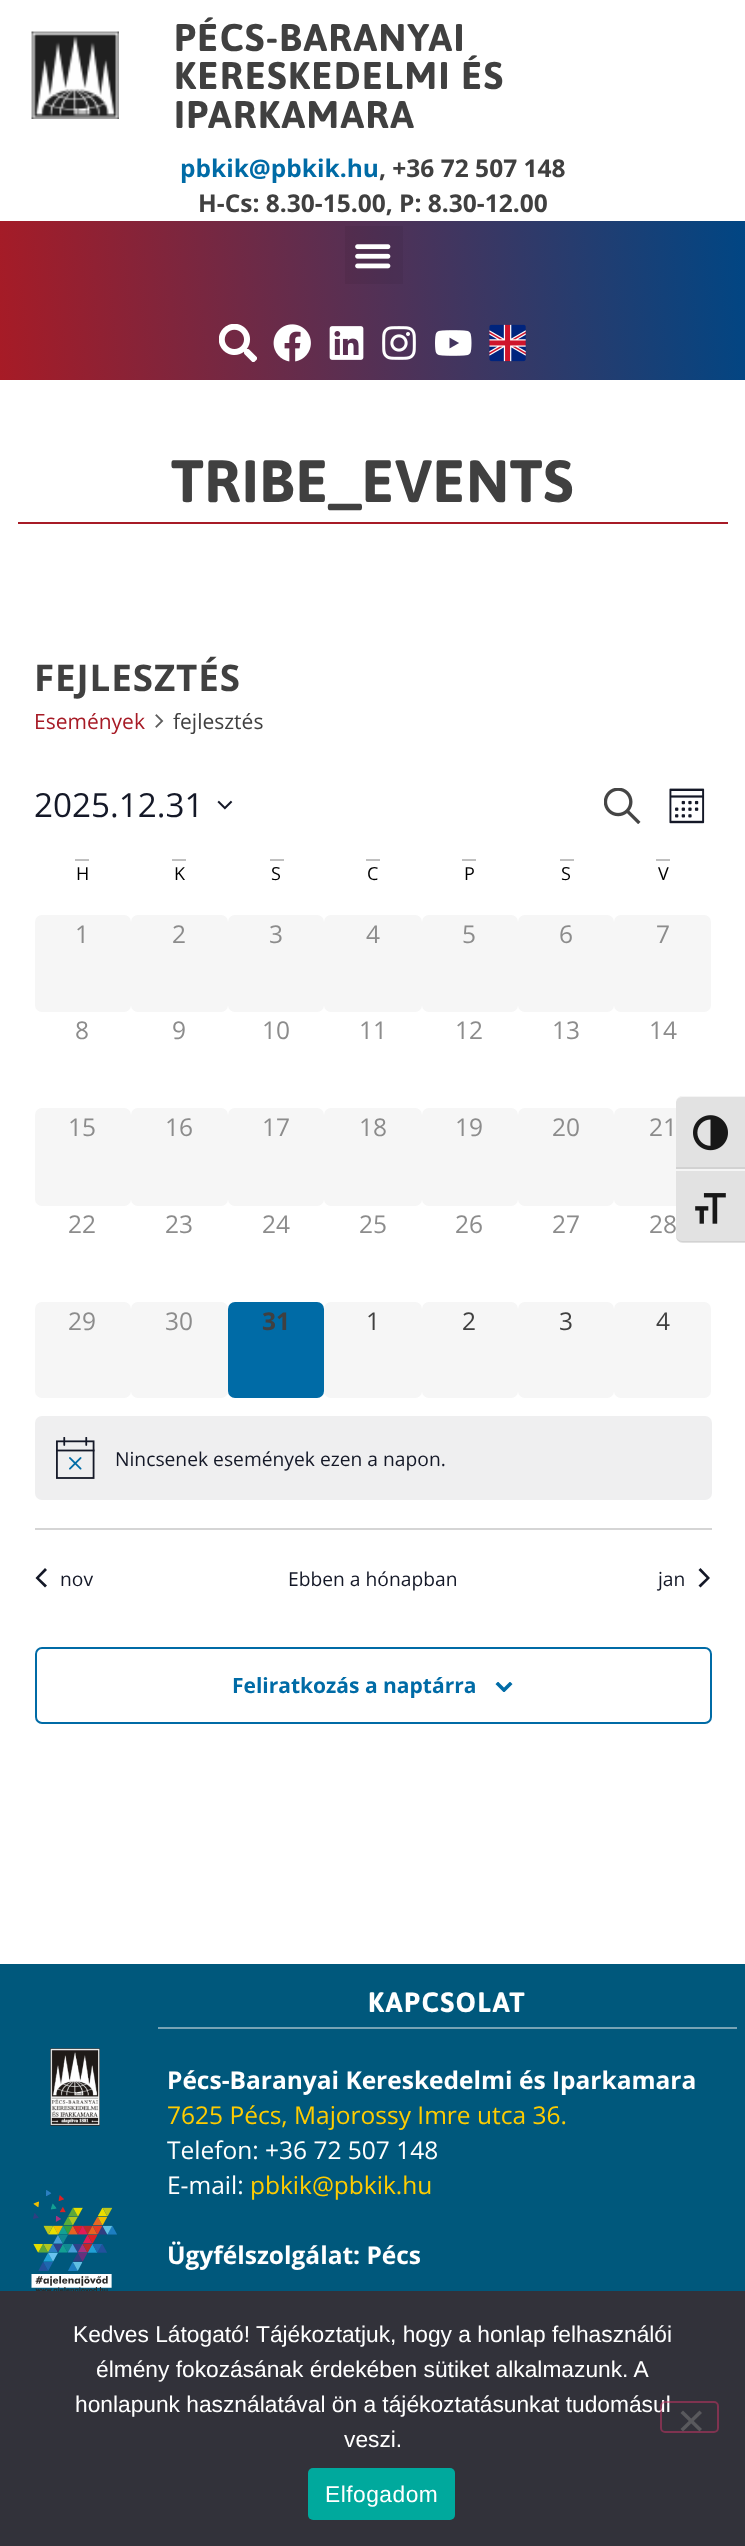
async function draw(canvas) {
  canvas.width = 745;
  canvas.height = 2546;
  const ctx = canvas.getContext('2d');
  ctx.miterLimit = 4;
  ctx.fontKerning = 'normal';
  function label(s, x, y, font, color) {
    ctx.font = font;
    ctx.fillStyle = color;
    ctx.fillText(s, x, y);
  }
  function rect(x, y, w, h, color) {
    ctx.fillStyle = color;
    ctx.fillRect(x, y, w, h);
  }
  function roundedRect(x, y, w, h, r, color) {
    ctx.fillStyle = color;
    ctx.beginPath();
    ctx.roundRect(x, y, w, h, r);
    ctx.fill();
  }
  async function image(src, x, y, w, h) {
    const img = new Image();
    img.src = src;
    await img.decode();
    ctx.drawImage(img, x, y, w, h);
  }
  let gradient, path;

  rect(0, 0, 745, 2546, '#fff');
  await image('assets/img1.png', 31, 31, 88, 88);
  ctx.letterSpacing = '1.4px';
  label('PÉCS-BARANYAI', 174, 51, 'bold 38.5px Asap', '#404040');
  label('KERESKEDELMI ÉS', 174, 89, 'bold 38.5px Asap', '#404040');
  label('IPARKAMARA', 174, 128, 'bold 38.5px Asap', '#404040');
  ctx.letterSpacing = '0px';
  label('pbkik@pbkik.hu', 180, 177, 'bold 24.5px Open Sans', '#006ba6');
  label(', +36 72 507 148', 379, 177, 'bold 24.5px Open Sans', '#404040');
  label('H-Cs: 8.30-15.00, P: 8.30-12.00', 198, 212, 'bold 24.5px Open Sans', '#404040');
  gradient = ctx.createLinearGradient(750, 267, -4.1, 333);
  gradient.addColorStop(0, '#004684');
  gradient.addColorStop(1, '#a71b26');
  ctx.fillStyle = gradient;
  ctx.fillRect(0, 221, 745, 159);
  rect(345, 226, 58, 58, '#0000000d');
  await image('assets/img2.png', 355, 244, 36, 25);
  await image('assets/img3.png', 219, 324, 38, 38);
  await image('assets/img4.png', 273, 324, 38, 38);
  await image('assets/img5.png', 329, 326, 35, 34);
  await image('assets/img6.png', 382, 326, 34, 34);
  await image('assets/img7.png', 435, 330, 37, 26);
  await image('assets/img8.png', 489, 324, 37, 38);
  rect(18, 522, 710, 2, '#a71b26');
  ctx.letterSpacing = '0.9px';
  label('TRIBE_EVENTS', 171, 502, 'bold 59.5px Asap', '#404040');
  label('FEJLESZTÉS', 34, 691, 'bold 36.75px Open Sans', '#404040');
  ctx.letterSpacing = '0px';
  label('Események', 34, 729, '21px Open Sans', '#a71b26');
  await image('assets/img9.png', 155, 714, 9, 14);
  label('fejlesztés', 173, 729, '21px Open Sans', '#404040');
  label('2025.12.31', 34, 817, '33.25px Open Sans', '#141827');
  await image('assets/img10.png', 217, 800, 16, 10);
  await image('assets/img11.png', 604, 788, 37, 36);
  await image('assets/img12.png', 669, 788, 36, 36);
  rect(75, 859, 14, 2, '#c0c0c0');
  label('H', 76, 880, '18px Open Sans', '#000');
  rect(172, 859, 14, 2, '#c0c0c0');
  label('K', 174, 880, '18px Open Sans', '#000');
  rect(270, 859, 14, 2, '#c0c0c0');
  label('S', 271, 880, '18px Open Sans', '#000');
  rect(366, 859, 14, 2, '#c0c0c0');
  label('C', 367, 880, '18px Open Sans', '#000');
  rect(462, 859, 14, 2, '#c0c0c0');
  label('P', 464, 880, '18px Open Sans', '#000');
  rect(560, 859, 14, 2, '#c0c0c0');
  label('S', 561, 880, '18px Open Sans', '#000');
  rect(656, 859, 14, 2, '#c0c0c0');
  label('V', 658, 880, '18px Open Sans', '#000');
  roundedRect(35, 915, 96, 97, 7, '#f6f6f6');
  label('1', 75, 943, '24.5px Open Sans', '#8c8c8c');
  roundedRect(131, 915, 97, 97, 7, '#f6f6f6');
  label('2', 172, 943, '24.5px Open Sans', '#8c8c8c');
  roundedRect(228, 915, 96, 97, 7, '#f6f6f6');
  label('3', 269, 943, '24.5px Open Sans', '#8c8c8c');
  roundedRect(324, 915, 98, 97, 7, '#f6f6f6');
  label('4', 366, 943, '24.5px Open Sans', '#8c8c8c');
  roundedRect(422, 915, 96, 97, 7, '#f6f6f6');
  label('5', 462, 943, '24.5px Open Sans', '#8c8c8c');
  roundedRect(518, 915, 96, 97, 7, '#f6f6f6');
  label('6', 559, 943, '24.5px Open Sans', '#8c8c8c');
  roundedRect(614, 915, 97, 97, 7, '#f6f6f6');
  label('7', 656, 943, '24.5px Open Sans', '#8c8c8c');
  label('8', 75, 1039, '24.5px Open Sans', '#8c8c8c');
  label('9', 172, 1039, '24.5px Open Sans', '#8c8c8c');
  label('10', 262, 1039, '24.5px Open Sans', '#8c8c8c');
  label('11', 359, 1039, '24.5px Open Sans', '#8c8c8c');
  label('12', 455, 1039, '24.5px Open Sans', '#8c8c8c');
  label('13', 552, 1039, '24.5px Open Sans', '#8c8c8c');
  label('14', 649, 1039, '24.5px Open Sans', '#8c8c8c');
  roundedRect(35, 1108, 96, 98, 7, '#f6f6f6');
  label('15', 68, 1136, '24.5px Open Sans', '#8c8c8c');
  roundedRect(131, 1108, 97, 98, 7, '#f6f6f6');
  label('16', 165, 1136, '24.5px Open Sans', '#8c8c8c');
  roundedRect(228, 1108, 96, 98, 7, '#f6f6f6');
  label('17', 262, 1136, '24.5px Open Sans', '#8c8c8c');
  roundedRect(324, 1108, 98, 98, 7, '#f6f6f6');
  label('18', 359, 1136, '24.5px Open Sans', '#8c8c8c');
  roundedRect(422, 1108, 96, 98, 7, '#f6f6f6');
  label('19', 455, 1136, '24.5px Open Sans', '#8c8c8c');
  roundedRect(518, 1108, 96, 98, 7, '#f6f6f6');
  label('20', 552, 1136, '24.5px Open Sans', '#8c8c8c');
  roundedRect(614, 1108, 97, 98, 7, '#f6f6f6');
  label('21', 649, 1136, '24.5px Open Sans', '#8c8c8c');
  label('22', 68, 1233, '24.5px Open Sans', '#8c8c8c');
  label('23', 165, 1233, '24.5px Open Sans', '#8c8c8c');
  label('24', 262, 1233, '24.5px Open Sans', '#8c8c8c');
  label('25', 359, 1233, '24.5px Open Sans', '#8c8c8c');
  label('26', 455, 1233, '24.5px Open Sans', '#8c8c8c');
  label('27', 552, 1233, '24.5px Open Sans', '#8c8c8c');
  label('28', 649, 1233, '24.5px Open Sans', '#8c8c8c');
  roundedRect(35, 1302, 96, 96, 7, '#f6f6f6');
  label('29', 68, 1330, '24.5px Open Sans', '#8c8c8c');
  roundedRect(131, 1302, 97, 96, 7, '#f6f6f6');
  label('30', 165, 1330, '24.5px Open Sans', '#8c8c8c');
  roundedRect(228, 1302, 96, 96, 7, '#006ba6');
  label('31', 262, 1330, 'bold 24.5px Open Sans', '#404040');
  roundedRect(324, 1302, 98, 96, 7, '#f6f6f6');
  label('1', 366, 1330, '24.5px Open Sans', '#404040');
  roundedRect(422, 1302, 96, 96, 7, '#f6f6f6');
  label('2', 462, 1330, '24.5px Open Sans', '#404040');
  roundedRect(518, 1302, 96, 96, 7, '#f6f6f6');
  label('3', 559, 1330, '24.5px Open Sans', '#404040');
  roundedRect(614, 1302, 97, 96, 7, '#f6f6f6');
  label('4', 656, 1330, '24.5px Open Sans', '#404040');
  roundedRect(35, 1416, 677, 84, 7, '#efeff0');
  await image('assets/img13.png', 56, 1437, 39, 42);
  label('Nincsenek események ezen a napon.', 115, 1466, '19.25px Open Sans', '#141827');
  rect(35, 1528, 677, 2, '#d5d5d5');
  ctx.fillStyle = '#141827';
  path = new Path2D('M47 1585.5L45 1587.5L35.5 1578L45 1568L47 1570L39 1578Z');
  ctx.fill(path);
  label('nov', 60, 1586, '19.25px Open Sans', '#141827');
  label('Ebben a hónapban', 288, 1586, '19.25px Open Sans', '#141827');
  label('jan', 658, 1586, '19.25px Open Sans', '#141827');
  path = new Path2D('M698.5 1570L700.5 1568L710 1578L700.5 1587.5L698.5 1585.5L706.5 1578Z');
  ctx.fill(path);
  ctx.beginPath();
  ctx.roundRect(36, 1648, 675, 75, 6);
  ctx.strokeStyle = '#006ba6';
  ctx.lineWidth = 2;
  ctx.stroke();
  label('Feliratkozás a naptárra', 232, 1693, 'bold 21px Open Sans', '#006ba6');
  await image('assets/img14.png', 495, 1682, 18, 10);
  ctx.fillStyle = '#e2e2e2';
  path = new Path2D('M683 1096H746V1169H676V1103C676 1099 679 1096 683 1096Z');
  ctx.fill(path);
  ctx.fillStyle = '#f5f5f5';
  path = new Path2D('M682 1096H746V1097H682C679 1097 676 1100 676 1102C676 1099 679 1096 682 1096Z');
  ctx.fill(path);
  rect(676, 1167, 69, 2, '#d2d2d2');
  await image('assets/img15.png', 693, 1115, 35, 36);
  ctx.fillStyle = '#e2e2e2';
  path = new Path2D('M676 1169H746V1243H683C679 1243 676 1240 676 1236Z');
  ctx.fill(path);
  rect(676, 1169, 69, 2, '#f5f5f5');
  ctx.fillStyle = '#d2d2d2';
  path = new Path2D('M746 1241V1242H682C679 1242 676 1239 676 1236C676 1238 679 1241 682 1241Z');
  ctx.fill(path);
  await image('assets/img16.png', 695, 1193, 31, 31);
  rect(0, 1964, 745, 327, '#00587c');
  await image('assets/img17.png', 50, 2048, 50, 78);
  await image('assets/img18.png', 31, 2190, 86, 101);
  rect(158, 2027, 579, 2, '#77a3b5');
  ctx.letterSpacing = '1.4px';
  label('KAPCSOLAT', 368, 2012, 'bold 28px Asap', '#fff');
  ctx.letterSpacing = '0px';
  label('Pécs-Baranyai Kereskedelmi és Iparkamara', 167, 2089, 'bold 24.5px Open Sans', '#fff');
  label('7625 Pécs, Majorossy Imre utca 36.', 167, 2124, '24.5px Open Sans', '#fc0');
  label('Telefon: +36 72 507 148', 167, 2159, '24.5px Open Sans', '#fff');
  label('E-mail:', 167, 2194, '24.5px Open Sans', '#fff');
  label('pbkik@pbkik.hu', 250, 2194, '24.5px Open Sans', '#fc0');
  label('Ügyfélszolgálat: Pécs', 167, 2264, 'bold 24.5px Open Sans', '#fff');
  rect(0, 2291, 745, 255, '#32323a');
  label('Kedves Látogató! Tájékoztatjuk, hogy a honlap felhasználói', 73, 2342, '22.75px Liberation Sans', '#fff');
  label('élmény fokozásának érdekében sütiket alkalmazunk. A', 96, 2377, '22.75px Liberation Sans', '#fff');
  label('honlapunk használatával ön a tájékoztatásunkat tudomásul', 75, 2412, '22.75px Liberation Sans', '#fff');
  label('veszi.', 344, 2447, '22.75px Liberation Sans', '#fff');
  ctx.beginPath();
  ctx.roundRect(661, 2402, 57, 30, 4);
  ctx.strokeStyle = '#cc336680';
  ctx.stroke();
  ctx.fillStyle = '#59595d';
  path = new Path2D('M699.5 2410.5L702 2413L683 2431.5L680.5 2429Z');
  ctx.fill(path);
  path = new Path2D('M680.5 2413L683 2410.5L702 2429L699.5 2431.5Z');
  ctx.fill(path);
  roundedRect(308, 2468, 147, 52, 5, '#00a99d');
  ctx.letterSpacing = '0.5px';
  label('Elfogadom', 325, 2502, '22.75px Liberation Sans', '#fff');
}

draw(document.querySelector('canvas'));
